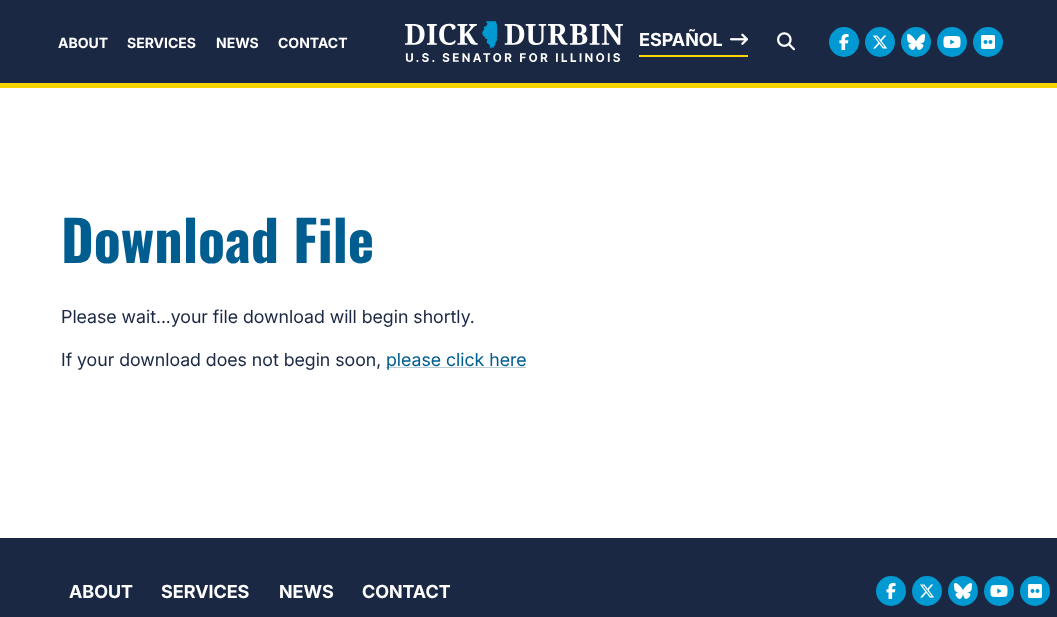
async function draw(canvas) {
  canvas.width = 1057;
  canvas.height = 617;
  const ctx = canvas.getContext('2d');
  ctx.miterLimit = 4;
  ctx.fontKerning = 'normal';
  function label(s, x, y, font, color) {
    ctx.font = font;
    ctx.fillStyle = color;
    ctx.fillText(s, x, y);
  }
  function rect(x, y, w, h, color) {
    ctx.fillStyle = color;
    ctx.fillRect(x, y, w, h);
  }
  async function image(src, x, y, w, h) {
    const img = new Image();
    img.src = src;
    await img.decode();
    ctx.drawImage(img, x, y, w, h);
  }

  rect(0, 0, 1057, 617, '#fff');
  rect(0, 0, 1057, 83, '#1b2844');
  rect(0, 83, 1057, 5, '#f5d400');
  label('ABOUT', 58, 48, 'bold 14px "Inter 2"', '#fff');
  label('SERVICES', 127, 48, 'bold 14px "Inter 2"', '#fff');
  label('NEWS', 216, 48, 'bold 14px "Inter 2"', '#fff');
  label('CONTACT', 278, 48, 'bold 14px "Inter 2"', '#fff');
  await image('assets/img1.png', 405, 21, 218, 41);
  rect(639, 55, 109, 2, '#f5d400');
  label('ESPAÑOL', 639, 46, 'bold 18px Inter', '#fff');
  await image('assets/img2.png', 730, 33, 18, 12);
  await image('assets/img3.png', 777, 32, 18, 19);
  ctx.fillStyle = '#0099d1';
  ctx.beginPath();
  ctx.arc(844, 42, 14, 0, 2 * Math.PI);
  ctx.fill();
  ctx.strokeStyle = '#0099d1';
  ctx.lineWidth = 2;
  ctx.stroke();
  await image('assets/img4.png', 839, 34, 10, 16);
  ctx.beginPath();
  ctx.arc(880, 42, 14, 0, 2 * Math.PI);
  ctx.fill();
  ctx.stroke();
  await image('assets/img5.png', 873, 35, 15, 14);
  ctx.beginPath();
  ctx.arc(916, 42, 14, 0, 2 * Math.PI);
  ctx.fill();
  ctx.stroke();
  await image('assets/img6.png', 907, 34, 18, 16);
  ctx.beginPath();
  ctx.arc(952, 42, 14, 0, 2 * Math.PI);
  ctx.fill();
  ctx.stroke();
  await image('assets/img7.png', 943, 36, 18, 12);
  ctx.beginPath();
  ctx.arc(988, 42, 14, 0, 2 * Math.PI);
  ctx.fill();
  ctx.stroke();
  await image('assets/img8.png', 981, 35, 14, 14);
  label('Download File', 61, 263, 'bold 56px Oswald', '#005d90');
  label('Please wait...your file download will begin shortly.', 61, 323, '18px Inter', '#1b2844');
  label('If your download does not begin soon,', 61, 366, '18px Inter', '#1b2844');
  rect(386, 367, 140, 1, '#b9ccd7');
  label('please click here', 386, 366, '18px Inter', '#005d90');
  rect(0, 538, 1057, 79, '#1b2844');
  label('ABOUT', 69, 598, 'bold 18px Inter', '#fff');
  label('SERVICES', 161, 598, 'bold 18px Inter', '#fff');
  label('NEWS', 279, 598, 'bold 18px Inter', '#fff');
  label('CONTACT', 362, 598, 'bold 18px Inter', '#fff');
  ctx.fillStyle = '#0099d1';
  ctx.beginPath();
  ctx.arc(891, 591, 14, 0, 2 * Math.PI);
  ctx.fill();
  ctx.stroke();
  await image('assets/img4.png', 886, 583, 10, 16);
  ctx.beginPath();
  ctx.arc(927, 591, 14, 0, 2 * Math.PI);
  ctx.fill();
  ctx.stroke();
  await image('assets/img5.png', 920, 584, 15, 14);
  ctx.beginPath();
  ctx.arc(963, 591, 14, 0, 2 * Math.PI);
  ctx.fill();
  ctx.stroke();
  await image('assets/img6.png', 954, 583, 18, 16);
  ctx.beginPath();
  ctx.arc(999, 591, 14, 0, 2 * Math.PI);
  ctx.fill();
  ctx.stroke();
  await image('assets/img7.png', 990, 585, 18, 12);
  ctx.beginPath();
  ctx.arc(1035, 591, 14, 0, 2 * Math.PI);
  ctx.fill();
  ctx.stroke();
  await image('assets/img8.png', 1028, 584, 14, 14);
}

draw(document.querySelector('canvas'));
